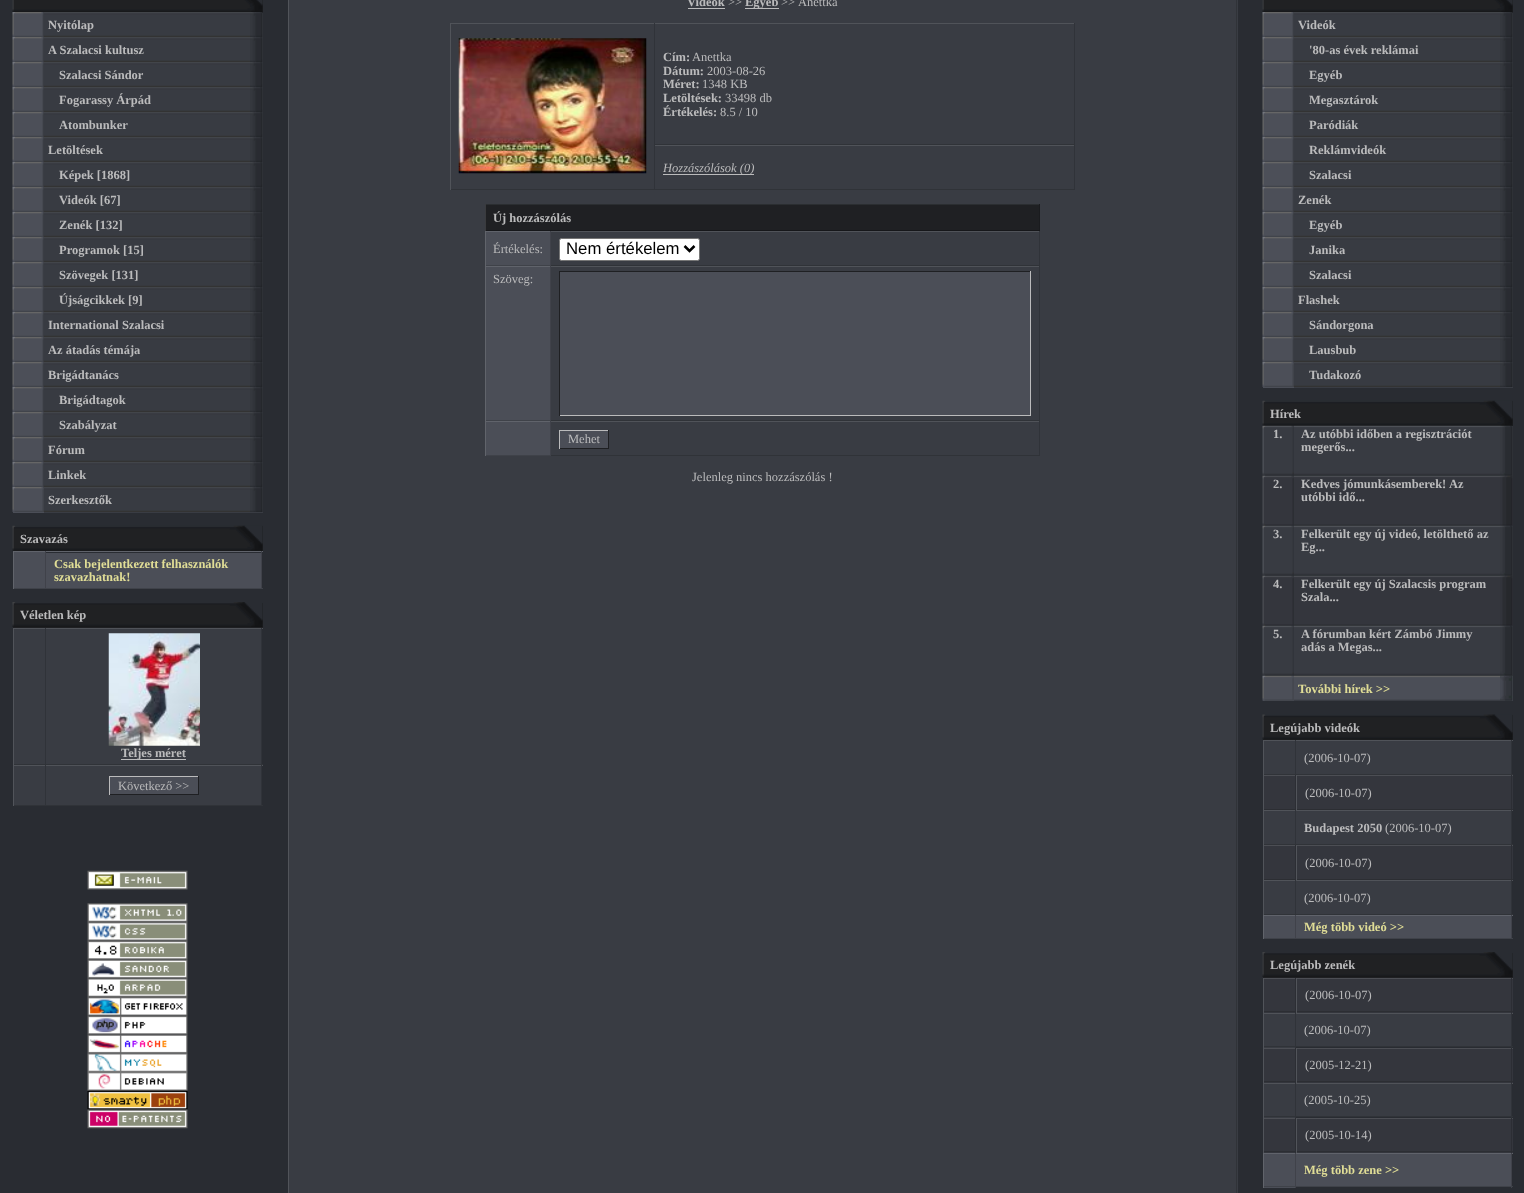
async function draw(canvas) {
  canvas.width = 1524;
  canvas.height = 1193;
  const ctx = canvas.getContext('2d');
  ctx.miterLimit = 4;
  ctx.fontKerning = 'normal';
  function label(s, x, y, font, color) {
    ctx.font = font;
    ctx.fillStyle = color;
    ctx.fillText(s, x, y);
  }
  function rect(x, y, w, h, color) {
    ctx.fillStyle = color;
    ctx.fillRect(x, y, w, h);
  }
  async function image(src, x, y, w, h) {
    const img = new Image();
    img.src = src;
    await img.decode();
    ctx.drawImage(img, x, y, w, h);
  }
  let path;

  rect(0, 0, 1524, 1193, '#292c32');
  rect(43, 0, 220, 13, '#1f2023');
  await image('assets/img1.png', 12, 0, 251, 12);
  await image('assets/img2.png', 12, 12, 32, 25);
  await image('assets/img3.png', 43, 12, 207, 25);
  label('Nyitólap', 48, 29, 'bold 12.5px Liberation Serif', '#bbbbbc');
  rect(262, 13, 1, 475, '#393c43');
  await image('assets/img4.png', 250, 12, 13, 25);
  await image('assets/img5.png', 12, 37, 32, 25);
  await image('assets/img6.png', 43, 37, 207, 25);
  label('A Szalacsi kultusz', 48, 54, 'bold 12.5px Liberation Serif', '#bbbbbc');
  await image('assets/img7.png', 250, 37, 13, 25);
  await image('assets/img5.png', 12, 62, 32, 25);
  await image('assets/img8.png', 43, 62, 207, 25);
  label('Szalacsi Sándor', 59, 79, 'bold 12.5px Liberation Serif', '#bbbbbc');
  await image('assets/img7.png', 250, 62, 13, 25);
  await image('assets/img5.png', 12, 87, 32, 25);
  await image('assets/img6.png', 43, 87, 207, 25);
  label('Fogarassy Árpád', 59, 104, 'bold 12.5px Liberation Serif', '#bbbbbc');
  await image('assets/img7.png', 250, 87, 13, 25);
  await image('assets/img9.png', 12, 112, 32, 25);
  await image('assets/img10.png', 43, 112, 207, 25);
  label('Atombunker', 59, 129, 'bold 12.5px Liberation Serif', '#bbbbbc');
  await image('assets/img7.png', 250, 112, 13, 25);
  await image('assets/img5.png', 12, 137, 32, 25);
  await image('assets/img6.png', 43, 137, 207, 25);
  label('Letöltések', 48, 154, 'bold 12.5px Liberation Serif', '#bbbbbc');
  await image('assets/img7.png', 250, 137, 13, 25);
  await image('assets/img5.png', 12, 162, 32, 25);
  await image('assets/img11.png', 43, 162, 207, 25);
  label('Képek [1868]', 59, 179, 'bold 12.5px Liberation Serif', '#bbbbbc');
  await image('assets/img7.png', 250, 162, 13, 25);
  await image('assets/img5.png', 12, 187, 32, 25);
  await image('assets/img11.png', 43, 187, 207, 25);
  label('Videók [67]', 59, 204, 'bold 12.5px Liberation Serif', '#bbbbbc');
  await image('assets/img7.png', 250, 187, 13, 25);
  await image('assets/img5.png', 12, 212, 32, 25);
  await image('assets/img12.png', 43, 212, 207, 25);
  label('Zenék [132]', 59, 229, 'bold 12.5px Liberation Serif', '#bbbbbc');
  await image('assets/img7.png', 250, 212, 13, 25);
  await image('assets/img5.png', 12, 237, 32, 25);
  await image('assets/img13.png', 43, 237, 207, 25);
  label('Programok [15]', 59, 254, 'bold 12.5px Liberation Serif', '#bbbbbc');
  await image('assets/img7.png', 250, 237, 13, 25);
  await image('assets/img5.png', 12, 262, 32, 25);
  await image('assets/img13.png', 43, 262, 207, 25);
  label('Szövegek [131]', 59, 279, 'bold 12.5px Liberation Serif', '#bbbbbc');
  await image('assets/img7.png', 250, 262, 13, 25);
  await image('assets/img5.png', 12, 287, 32, 25);
  await image('assets/img14.png', 43, 287, 207, 25);
  label('Újságcikkek [9]', 59, 304, 'bold 12.5px Liberation Serif', '#bbbbbc');
  await image('assets/img7.png', 250, 287, 13, 25);
  await image('assets/img5.png', 12, 312, 32, 25);
  await image('assets/img15.png', 43, 312, 207, 25);
  label('International Szalacsi', 48, 329, 'bold 12.5px Liberation Serif', '#bbbbbc');
  await image('assets/img7.png', 250, 312, 13, 25);
  await image('assets/img5.png', 12, 337, 32, 25);
  await image('assets/img6.png', 43, 337, 207, 25);
  label('Az átadás témája', 48, 354, 'bold 12.5px Liberation Serif', '#bbbbbc');
  await image('assets/img7.png', 250, 337, 13, 25);
  await image('assets/img5.png', 12, 362, 32, 25);
  await image('assets/img6.png', 43, 362, 207, 25);
  label('Brigádtanács', 48, 379, 'bold 12.5px Liberation Serif', '#bbbbbc');
  await image('assets/img7.png', 250, 362, 13, 25);
  await image('assets/img5.png', 12, 387, 32, 25);
  await image('assets/img12.png', 43, 387, 207, 25);
  label('Brigádtagok', 59, 404, 'bold 12.5px Liberation Serif', '#bbbbbc');
  await image('assets/img7.png', 250, 387, 13, 25);
  await image('assets/img5.png', 12, 412, 32, 25);
  await image('assets/img6.png', 43, 412, 207, 25);
  label('Szabályzat', 59, 429, 'bold 12.5px Liberation Serif', '#bbbbbc');
  await image('assets/img7.png', 250, 412, 13, 25);
  await image('assets/img5.png', 12, 437, 32, 25);
  await image('assets/img6.png', 43, 437, 207, 25);
  label('Fórum', 48, 454, 'bold 12.5px Liberation Serif', '#bbbbbc');
  await image('assets/img7.png', 250, 437, 13, 25);
  await image('assets/img5.png', 12, 462, 32, 25);
  await image('assets/img6.png', 43, 462, 207, 25);
  label('Linkek', 48, 479, 'bold 12.5px Liberation Serif', '#bbbbbc');
  await image('assets/img7.png', 250, 462, 13, 25);
  rect(13, 488, 31, 25, '#4b4e57');
  await image('assets/img5.png', 12, 487, 32, 25);
  rect(44, 512, 206, 1, '#393c43');
  await image('assets/img6.png', 43, 487, 207, 25);
  label('Szerkesztők', 48, 504, 'bold 12.5px Liberation Serif', '#bbbbbc');
  rect(250, 488, 13, 25, '#393c43');
  await image('assets/img7.png', 250, 487, 13, 25);
  rect(13, 526, 250, 25, '#1f2023');
  await image('assets/img16.png', 12, 525, 251, 26);
  label('Szavazás', 20, 543, 'bold 12.5px Liberation Serif', '#bbbbbc');
  rect(14, 552, 31, 36, '#4b4e57');
  rect(13, 551, 250, 1, '#60636b');
  rect(45, 551, 1, 38, '#40424a');
  rect(13, 588, 33, 1, '#3f4249');
  rect(13, 551, 1, 38, '#61646b');
  rect(46, 553, 215, 35, '#4b4e57');
  rect(261, 551, 1, 38, '#40424a');
  rect(46, 588, 217, 1, '#3f4249');
  label('Csak bejelentkezett felhasználók', 54, 568, 'bold 12.5px Liberation Serif', '#e0dd96');
  label('szavazhatnak!', 54, 581, 'bold 12.5px Liberation Serif', '#e0dd96');
  rect(13, 603, 250, 25, '#1f2023');
  await image('assets/img17.png', 12, 602, 251, 25);
  label('Véletlen kép', 20, 619, 'bold 12.5px Liberation Serif', '#bbbbbc');
  rect(14, 629, 31, 135, '#393c43');
  rect(13, 628, 250, 1, '#505359');
  rect(45, 628, 1, 137, '#303339');
  rect(13, 764, 33, 1, '#303338');
  rect(13, 628, 1, 137, '#51545a');
  rect(46, 629, 215, 135, '#393c43');
  rect(261, 628, 1, 137, '#303339');
  rect(46, 764, 217, 1, '#303338');
  await image('assets/img18.png', 108, 633, 92, 113);
  rect(121, 759, 65, 1, '#bbbbbc');
  label('Teljes méret', 121, 757, 'bold 12.5px Liberation Serif', '#bbbbbc');
  rect(14, 766, 31, 39, '#393c43');
  rect(13, 765, 250, 1, '#505359');
  rect(45, 765, 1, 41, '#303339');
  rect(13, 805, 33, 1, '#303338');
  rect(13, 765, 1, 41, '#51545a');
  rect(46, 766, 215, 39, '#393c43');
  rect(261, 765, 1, 41, '#303339');
  rect(46, 805, 217, 1, '#303338');
  rect(110, 777, 88, 17, '#4b4e57');
  rect(109, 776, 90, 1, '#bbbbbc');
  rect(198, 776, 1, 19, '#1f2023');
  rect(109, 794, 90, 1, '#1f2023');
  rect(109, 776, 1, 19, '#bbbbbc');
  label('Következő >>', 118, 790, '12.5px Liberation Serif', '#bbbbbc');
  await image('assets/img19.png', 87, 870, 101, 20);
  await image('assets/img20.png', 87, 903, 101, 19);
  await image('assets/img21.png', 87, 922, 101, 19);
  await image('assets/img22.png', 87, 940, 101, 20);
  await image('assets/img23.png', 87, 959, 101, 20);
  await image('assets/img24.png', 87, 978, 101, 19);
  await image('assets/img25.png', 87, 997, 101, 19);
  await image('assets/img26.png', 87, 1015, 101, 20);
  await image('assets/img27.png', 87, 1034, 101, 20);
  await image('assets/img28.png', 87, 1053, 101, 19);
  await image('assets/img29.png', 87, 1072, 101, 19);
  await image('assets/img30.png', 87, 1090, 101, 20);
  await image('assets/img31.png', 87, 1109, 101, 20);
  rect(289, 0, 949, 1193, '#393c43');
  rect(1236, 0, 1, 1193, '#303338');
  rect(288, 0, 1, 1193, '#51545a');
  label('Videók', 687, 6, 'bold 12.5px Liberation Serif', '#bbbbbc');
  rect(688, 8, 37, 1, '#bbbbbc');
  label('>>', 728, 6, '12.5px Liberation Serif', '#bbbbbc');
  rect(745, 8, 34, 1, '#bbbbbc');
  label('Egyéb', 745, 6, 'bold 12.5px Liberation Serif', '#bbbbbc');
  label('>>', 781, 6, '12.5px Liberation Serif', '#bbbbbc');
  label('Anettka', 798, 6, '12.5px Liberation Serif', '#bbbbbc');
  rect(450, 23, 625, 1, '#505359');
  rect(654, 23, 1, 167, '#303339');
  rect(450, 189, 205, 1, '#303338');
  rect(450, 23, 1, 167, '#51545a');
  await image('assets/img32.png', 458, 38, 189, 136);
  rect(1074, 23, 1, 122, '#303339');
  rect(655, 144, 420, 1, '#303338');
  label('Cím:', 663, 61, 'bold 12.5px Liberation Serif', '#bbbbbc');
  label('Anettka', 692, 61, '12.5px Liberation Serif', '#bbbbbc');
  label('Dátum:', 663, 75, 'bold 12.5px Liberation Serif', '#bbbbbc');
  label('2003-08-26', 707, 75, '12.5px Liberation Serif', '#bbbbbc');
  label('Méret:', 663, 88, 'bold 12.5px Liberation Serif', '#bbbbbc');
  label('1348 KB', 702, 88, '12.5px Liberation Serif', '#bbbbbc');
  label('Letöltések:', 663, 102, 'bold 12.5px Liberation Serif', '#bbbbbc');
  label('33498 db', 725, 102, '12.5px Liberation Serif', '#bbbbbc');
  label('Értékelés:', 663, 116, 'bold 12.5px Liberation Serif', '#bbbbbc');
  label('8.5 / 10', 720, 116, '12.5px Liberation Serif', '#bbbbbc');
  rect(655, 145, 420, 1, '#505359');
  rect(1074, 145, 1, 45, '#303339');
  rect(655, 189, 420, 1, '#303338');
  rect(663, 174, 91, 1, '#bbbbbc');
  label('Hozzászólások (0)', 663, 172, 'italic 12.5px Liberation Serif', '#bbbbbc');
  rect(486, 205, 553, 25, '#1f2023');
  rect(485, 204, 555, 1, '#2b2e31');
  rect(1039, 204, 1, 27, '#1a1b1e');
  rect(485, 230, 555, 1, '#16171a');
  rect(485, 204, 1, 27, '#3a3b3e');
  label('Új hozzászólás', 493, 222, 'bold 12.5px Liberation Serif', '#bbbbbc');
  rect(486, 232, 64, 33, '#4b4e57');
  rect(485, 231, 66, 1, '#60636b');
  rect(550, 231, 1, 35, '#40424a');
  rect(485, 265, 66, 1, '#3f4249');
  rect(485, 231, 1, 35, '#61646b');
  label('Értékelés:', 493, 253, '12.5px Liberation Serif', '#bbbbbc');
  rect(551, 231, 489, 1, '#505359');
  rect(1039, 231, 1, 35, '#303339');
  rect(551, 265, 489, 1, '#303338');
  ctx.fillStyle = '#fff';
  ctx.beginPath();
  ctx.roundRect(559.5, 238.5, 140, 22, 2);
  ctx.fill();
  ctx.strokeStyle = '#767676';
  ctx.stroke();
  path = new Path2D('M684.5 246L689.5 251L694.5 246');
  ctx.strokeStyle = '#000';
  ctx.lineWidth = 2.5;
  ctx.stroke(path);
  label('Nem értékelem', 566, 254, '16.75px Liberation Sans', '#000');
  rect(486, 267, 64, 153, '#4b4e57');
  rect(485, 266, 66, 1, '#60636b');
  rect(550, 266, 1, 155, '#40424a');
  rect(485, 420, 66, 1, '#3f4249');
  rect(485, 266, 1, 155, '#61646b');
  label('Szöveg:', 493, 283, '12.5px Liberation Serif', '#bbbbbc');
  rect(551, 266, 489, 1, '#505359');
  rect(1039, 266, 1, 155, '#303339');
  rect(551, 420, 489, 1, '#303338');
  rect(560, 272, 470, 143, '#4b4e57');
  rect(559, 271, 472, 1, '#1f2023');
  rect(1030, 271, 1, 145, '#bbbbbc');
  rect(559, 415, 472, 1, '#bbbbbc');
  rect(559, 271, 1, 145, '#1f2023');
  rect(486, 422, 64, 33, '#4b4e57');
  rect(485, 421, 66, 1, '#60636b');
  rect(550, 421, 1, 35, '#40424a');
  rect(485, 455, 66, 1, '#3f4249');
  rect(485, 421, 1, 35, '#61646b');
  rect(551, 421, 489, 1, '#505359');
  rect(1039, 421, 1, 35, '#303339');
  rect(551, 455, 489, 1, '#303338');
  rect(560, 431, 48, 17, '#4b4e57');
  rect(559, 430, 50, 1, '#bbbbbc');
  rect(608, 430, 1, 19, '#1f2023');
  rect(559, 448, 50, 1, '#1f2023');
  rect(559, 430, 1, 19, '#bbbbbc');
  label('Mehet', 568, 443, '12.5px Liberation Serif', '#bbbbbc');
  label('Jelenleg nincs hozzászólás !', 692, 481, '12.5px Liberation Serif', '#bbbbbc');
  rect(1293, 0, 220, 13, '#1f2023');
  await image('assets/img33.png', 1262, 0, 251, 12);
  await image('assets/img2.png', 1262, 12, 32, 25);
  await image('assets/img3.png', 1293, 12, 207, 25);
  label('Videók', 1298, 29, 'bold 12.5px Liberation Serif', '#bbbbbc');
  rect(1512, 13, 1, 350, '#393c43');
  await image('assets/img4.png', 1500, 12, 13, 25);
  await image('assets/img5.png', 1262, 37, 32, 25);
  await image('assets/img6.png', 1293, 37, 207, 25);
  label('\'80-as évek reklámai', 1309, 54, 'bold 12.5px Liberation Serif', '#bbbbbc');
  await image('assets/img7.png', 1500, 37, 13, 25);
  await image('assets/img5.png', 1262, 62, 32, 25);
  await image('assets/img8.png', 1293, 62, 207, 25);
  label('Egyéb', 1309, 79, 'bold 12.5px Liberation Serif', '#bbbbbc');
  await image('assets/img7.png', 1500, 62, 13, 25);
  await image('assets/img5.png', 1262, 87, 32, 25);
  await image('assets/img6.png', 1293, 87, 207, 25);
  label('Megasztárok', 1309, 104, 'bold 12.5px Liberation Serif', '#bbbbbc');
  await image('assets/img7.png', 1500, 87, 13, 25);
  await image('assets/img9.png', 1262, 112, 32, 25);
  await image('assets/img34.png', 1293, 112, 207, 25);
  label('Paródiák', 1309, 129, 'bold 12.5px Liberation Serif', '#bbbbbc');
  await image('assets/img7.png', 1500, 112, 13, 25);
  await image('assets/img5.png', 1262, 137, 32, 25);
  await image('assets/img6.png', 1293, 137, 207, 25);
  label('Reklámvideók', 1309, 154, 'bold 12.5px Liberation Serif', '#bbbbbc');
  await image('assets/img7.png', 1500, 137, 13, 25);
  await image('assets/img5.png', 1262, 162, 32, 25);
  await image('assets/img11.png', 1293, 162, 207, 25);
  label('Szalacsi', 1309, 179, 'bold 12.5px Liberation Serif', '#bbbbbc');
  await image('assets/img7.png', 1500, 162, 13, 25);
  await image('assets/img5.png', 1262, 187, 32, 25);
  await image('assets/img11.png', 1293, 187, 207, 25);
  label('Zenék', 1298, 204, 'bold 12.5px Liberation Serif', '#bbbbbc');
  await image('assets/img7.png', 1500, 187, 13, 25);
  await image('assets/img5.png', 1262, 212, 32, 25);
  await image('assets/img11.png', 1293, 212, 207, 25);
  label('Egyéb', 1309, 229, 'bold 12.5px Liberation Serif', '#bbbbbc');
  await image('assets/img7.png', 1500, 212, 13, 25);
  await image('assets/img5.png', 1262, 237, 32, 25);
  await image('assets/img35.png', 1293, 237, 207, 25);
  label('Janika', 1309, 254, 'bold 12.5px Liberation Serif', '#bbbbbc');
  await image('assets/img7.png', 1500, 237, 13, 25);
  await image('assets/img5.png', 1262, 262, 32, 25);
  await image('assets/img35.png', 1293, 262, 207, 25);
  label('Szalacsi', 1309, 279, 'bold 12.5px Liberation Serif', '#bbbbbc');
  await image('assets/img7.png', 1500, 262, 13, 25);
  await image('assets/img5.png', 1262, 287, 32, 25);
  await image('assets/img36.png', 1293, 287, 207, 25);
  label('Flashek', 1298, 304, 'bold 12.5px Liberation Serif', '#bbbbbc');
  await image('assets/img7.png', 1500, 287, 13, 25);
  await image('assets/img5.png', 1262, 312, 32, 25);
  await image('assets/img37.png', 1293, 312, 207, 25);
  label('Sándorgona', 1309, 329, 'bold 12.5px Liberation Serif', '#bbbbbc');
  await image('assets/img7.png', 1500, 312, 13, 25);
  await image('assets/img5.png', 1262, 337, 32, 25);
  await image('assets/img6.png', 1293, 337, 207, 25);
  label('Lausbub', 1309, 354, 'bold 12.5px Liberation Serif', '#bbbbbc');
  await image('assets/img7.png', 1500, 337, 13, 25);
  rect(1263, 363, 31, 25, '#4b4e57');
  await image('assets/img5.png', 1262, 362, 32, 25);
  rect(1294, 387, 206, 1, '#393c43');
  await image('assets/img6.png', 1293, 362, 207, 25);
  label('Tudakozó', 1309, 379, 'bold 12.5px Liberation Serif', '#bbbbbc');
  rect(1500, 363, 13, 25, '#393c43');
  await image('assets/img7.png', 1500, 362, 13, 25);
  rect(1263, 401, 250, 25, '#1f2023');
  await image('assets/img38.png', 1262, 400, 251, 26);
  label('Hírek', 1270, 418, 'bold 12.5px Liberation Serif', '#bbbbbc');
  await image('assets/img39.png', 1262, 425, 32, 51);
  label('1.', 1273, 438, 'bold 12.5px Liberation Serif', '#bbbbbc');
  await image('assets/img40.png', 1293, 425, 207, 51);
  label('Az utóbbi időben a regisztrációt', 1301, 438, 'bold 12.5px Liberation Serif', '#bbbbbc');
  label('megerős...', 1301, 451, 'bold 12.5px Liberation Serif', '#bbbbbc');
  rect(1500, 426, 13, 50, '#393c43');
  await image('assets/img41.png', 1500, 425, 13, 51);
  await image('assets/img42.png', 1262, 475, 32, 51);
  label('2.', 1273, 488, 'bold 12.5px Liberation Serif', '#bbbbbc');
  await image('assets/img43.png', 1293, 475, 207, 51);
  label('Kedves jómunkásemberek!', 1301, 488, 'bold 12.5px Liberation Serif', '#bbbbbc');
  label('Az', 1449, 488, 'bold 12.5px Liberation Serif', '#bbbbbc');
  label('utóbbi idő...', 1301, 501, 'bold 12.5px Liberation Serif', '#bbbbbc');
  rect(1500, 476, 13, 50, '#34363d');
  await image('assets/img44.png', 1500, 475, 13, 51);
  await image('assets/img45.png', 1262, 525, 32, 51);
  label('3.', 1273, 538, 'bold 12.5px Liberation Serif', '#bbbbbc');
  await image('assets/img46.png', 1293, 525, 207, 51);
  label('Felkerült egy új videó, letölthető az', 1301, 538, 'bold 12.5px Liberation Serif', '#bbbbbc');
  label('Eg...', 1301, 551, 'bold 12.5px Liberation Serif', '#bbbbbc');
  rect(1500, 526, 13, 50, '#393c43');
  await image('assets/img47.png', 1500, 525, 13, 51);
  await image('assets/img42.png', 1262, 575, 32, 51);
  label('4.', 1273, 588, 'bold 12.5px Liberation Serif', '#bbbbbc');
  await image('assets/img43.png', 1293, 575, 207, 51);
  label('Felkerült egy új Szalacsis program', 1301, 588, 'bold 12.5px Liberation Serif', '#bbbbbc');
  label('Szala...', 1301, 601, 'bold 12.5px Liberation Serif', '#bbbbbc');
  rect(1500, 576, 13, 50, '#34363d');
  await image('assets/img44.png', 1500, 575, 13, 51);
  await image('assets/img45.png', 1262, 625, 32, 51);
  label('5.', 1273, 638, 'bold 12.5px Liberation Serif', '#bbbbbc');
  await image('assets/img48.png', 1293, 625, 207, 51);
  label('A fórumban kért Zámbó Jimmy', 1301, 638, 'bold 12.5px Liberation Serif', '#bbbbbc');
  label('adás a Megas...', 1301, 651, 'bold 12.5px Liberation Serif', '#bbbbbc');
  rect(1500, 626, 13, 50, '#393c43');
  await image('assets/img47.png', 1500, 625, 13, 51);
  rect(1263, 676, 31, 25, '#4b4e57');
  await image('assets/img49.png', 1262, 675, 32, 26);
  await image('assets/img50.png', 1293, 675, 207, 26);
  label('További hírek >>', 1298, 693, 'bold 12.5px Liberation Serif', '#e0dd96');
  rect(1500, 676, 13, 25, '#4b4e57');
  await image('assets/img51.png', 1500, 675, 13, 26);
  rect(1263, 715, 250, 25, '#1f2023');
  await image('assets/img52.png', 1262, 714, 251, 26);
  label('Legújabb videók', 1270, 732, 'bold 12.5px Liberation Serif', '#bbbbbc');
  rect(1264, 741, 31, 33, '#393c43');
  rect(1263, 740, 250, 1, '#505359');
  rect(1295, 740, 1, 35, '#303339');
  rect(1263, 774, 33, 1, '#303338');
  rect(1263, 740, 1, 35, '#51545a');
  rect(1296, 741, 215, 33, '#393c43');
  rect(1511, 740, 1, 35, '#303339');
  rect(1296, 774, 217, 1, '#303338');
  label('(2006-10-07)', 1304, 762, '12.5px Liberation Serif', '#bbbbbc');
  rect(1264, 776, 31, 33, '#34363d');
  rect(1263, 775, 250, 1, '#4c4e54');
  rect(1295, 775, 1, 35, '#2c2e34');
  rect(1263, 809, 33, 1, '#2c2e33');
  rect(1263, 775, 1, 35, '#51545a');
  rect(1297, 776, 216, 33, '#34363d');
  rect(1511, 775, 1, 35, '#2c2e34');
  rect(1296, 809, 217, 1, '#2c2e33');
  rect(1296, 775, 1, 35, '#51545a');
  label('(2006-10-07)', 1305, 797, '12.5px Liberation Serif', '#bbbbbc');
  rect(1264, 811, 31, 33, '#393c43');
  rect(1263, 810, 250, 1, '#505359');
  rect(1295, 810, 1, 35, '#303339');
  rect(1263, 844, 33, 1, '#303338');
  rect(1263, 810, 1, 35, '#51545a');
  rect(1296, 811, 215, 33, '#393c43');
  rect(1511, 810, 1, 35, '#303339');
  rect(1296, 844, 217, 1, '#303338');
  label('Budapest 2050', 1304, 832, 'bold 12.5px Liberation Serif', '#bbbbbc');
  label('(2006-10-07)', 1385, 832, '12.5px Liberation Serif', '#bbbbbc');
  rect(1264, 846, 31, 33, '#34363d');
  rect(1263, 845, 250, 1, '#4c4e54');
  rect(1295, 845, 1, 35, '#2c2e34');
  rect(1263, 879, 33, 1, '#2c2e33');
  rect(1263, 845, 1, 35, '#51545a');
  rect(1297, 846, 216, 33, '#34363d');
  rect(1511, 845, 1, 35, '#2c2e34');
  rect(1296, 879, 217, 1, '#2c2e33');
  rect(1296, 845, 1, 35, '#51545a');
  label('(2006-10-07)', 1305, 867, '12.5px Liberation Serif', '#bbbbbc');
  rect(1264, 881, 31, 33, '#393c43');
  rect(1263, 880, 250, 1, '#505359');
  rect(1295, 880, 1, 35, '#303339');
  rect(1263, 914, 33, 1, '#303338');
  rect(1263, 880, 1, 35, '#51545a');
  rect(1296, 881, 215, 33, '#393c43');
  rect(1511, 880, 1, 35, '#303339');
  rect(1296, 914, 217, 1, '#303338');
  label('(2006-10-07)', 1304, 902, '12.5px Liberation Serif', '#bbbbbc');
  rect(1264, 916, 31, 22, '#4b4e57');
  rect(1263, 915, 250, 1, '#60636b');
  rect(1295, 915, 1, 24, '#40424a');
  rect(1263, 938, 33, 1, '#3f4249');
  rect(1263, 915, 1, 24, '#61646b');
  rect(1296, 916, 215, 22, '#4b4e57');
  rect(1511, 915, 1, 24, '#40424a');
  rect(1296, 938, 217, 1, '#3f4249');
  label('Még több videó >>', 1304, 931, 'bold 12.5px Liberation Serif', '#e0dd96');
  rect(1263, 953, 250, 25, '#1f2023');
  await image('assets/img53.png', 1262, 952, 251, 25);
  label('Legújabb zenék', 1270, 969, 'bold 12.5px Liberation Serif', '#bbbbbc');
  rect(1264, 979, 31, 34, '#34363d');
  rect(1263, 978, 250, 1, '#4c4e54');
  rect(1295, 978, 1, 35, '#2c2e34');
  rect(1263, 1011, 33, 1, '#2c2e33');
  rect(1263, 978, 1, 35, '#51545a');
  rect(1297, 979, 216, 34, '#34363d');
  rect(1511, 978, 1, 35, '#2c2e34');
  rect(1296, 1011, 217, 1, '#2c2e33');
  rect(1296, 978, 1, 35, '#51545a');
  label('(2006-10-07)', 1305, 999, '12.5px Liberation Serif', '#bbbbbc');
  rect(1264, 1014, 31, 34, '#393c43');
  rect(1263, 1013, 250, 1, '#505359');
  rect(1295, 1013, 1, 35, '#303339');
  rect(1263, 1046, 33, 1, '#303338');
  rect(1263, 1013, 1, 35, '#51545a');
  rect(1296, 1014, 215, 32, '#393c43');
  rect(1511, 1013, 1, 35, '#303339');
  rect(1296, 1046, 217, 1, '#303338');
  label('(2006-10-07)', 1304, 1034, '12.5px Liberation Serif', '#bbbbbc');
  rect(1264, 1049, 31, 34, '#34363d');
  rect(1263, 1048, 250, 1, '#4c4e54');
  rect(1295, 1048, 1, 35, '#2c2e34');
  rect(1263, 1081, 33, 1, '#2c2e33');
  rect(1263, 1048, 1, 35, '#51545a');
  rect(1297, 1049, 216, 34, '#34363d');
  rect(1511, 1048, 1, 35, '#2c2e34');
  rect(1296, 1081, 217, 1, '#2c2e33');
  rect(1296, 1048, 1, 35, '#51545a');
  label('(2005-12-21)', 1305, 1069, '12.5px Liberation Serif', '#bbbbbc');
  rect(1264, 1084, 31, 34, '#393c43');
  rect(1263, 1083, 250, 1, '#505359');
  rect(1295, 1083, 1, 35, '#303339');
  rect(1263, 1116, 33, 1, '#303338');
  rect(1263, 1083, 1, 35, '#51545a');
  rect(1296, 1084, 215, 32, '#393c43');
  rect(1511, 1083, 1, 35, '#303339');
  rect(1296, 1116, 217, 1, '#303338');
  label('(2005-10-25)', 1304, 1104, '12.5px Liberation Serif', '#bbbbbc');
  rect(1264, 1119, 31, 34, '#34363d');
  rect(1263, 1118, 250, 1, '#4c4e54');
  rect(1295, 1118, 1, 35, '#2c2e34');
  rect(1263, 1151, 33, 1, '#2c2e33');
  rect(1263, 1118, 1, 35, '#51545a');
  rect(1297, 1119, 216, 34, '#34363d');
  rect(1511, 1118, 1, 35, '#2c2e34');
  rect(1296, 1151, 217, 1, '#2c2e33');
  rect(1296, 1118, 1, 35, '#51545a');
  label('(2005-10-14)', 1305, 1139, '12.5px Liberation Serif', '#bbbbbc');
  rect(1264, 1154, 31, 34, '#4b4e57');
  rect(1263, 1153, 250, 1, '#60636b');
  rect(1295, 1153, 1, 35, '#40424a');
  rect(1263, 1186, 33, 1, '#3f4249');
  rect(1263, 1153, 1, 35, '#61646b');
  rect(1296, 1154, 215, 32, '#4b4e57');
  rect(1511, 1153, 1, 35, '#40424a');
  rect(1296, 1186, 217, 1, '#3f4249');
  label('Még több zene >>', 1304, 1174, 'bold 12.5px Liberation Serif', '#e0dd96');
}

draw(document.querySelector('canvas'));
